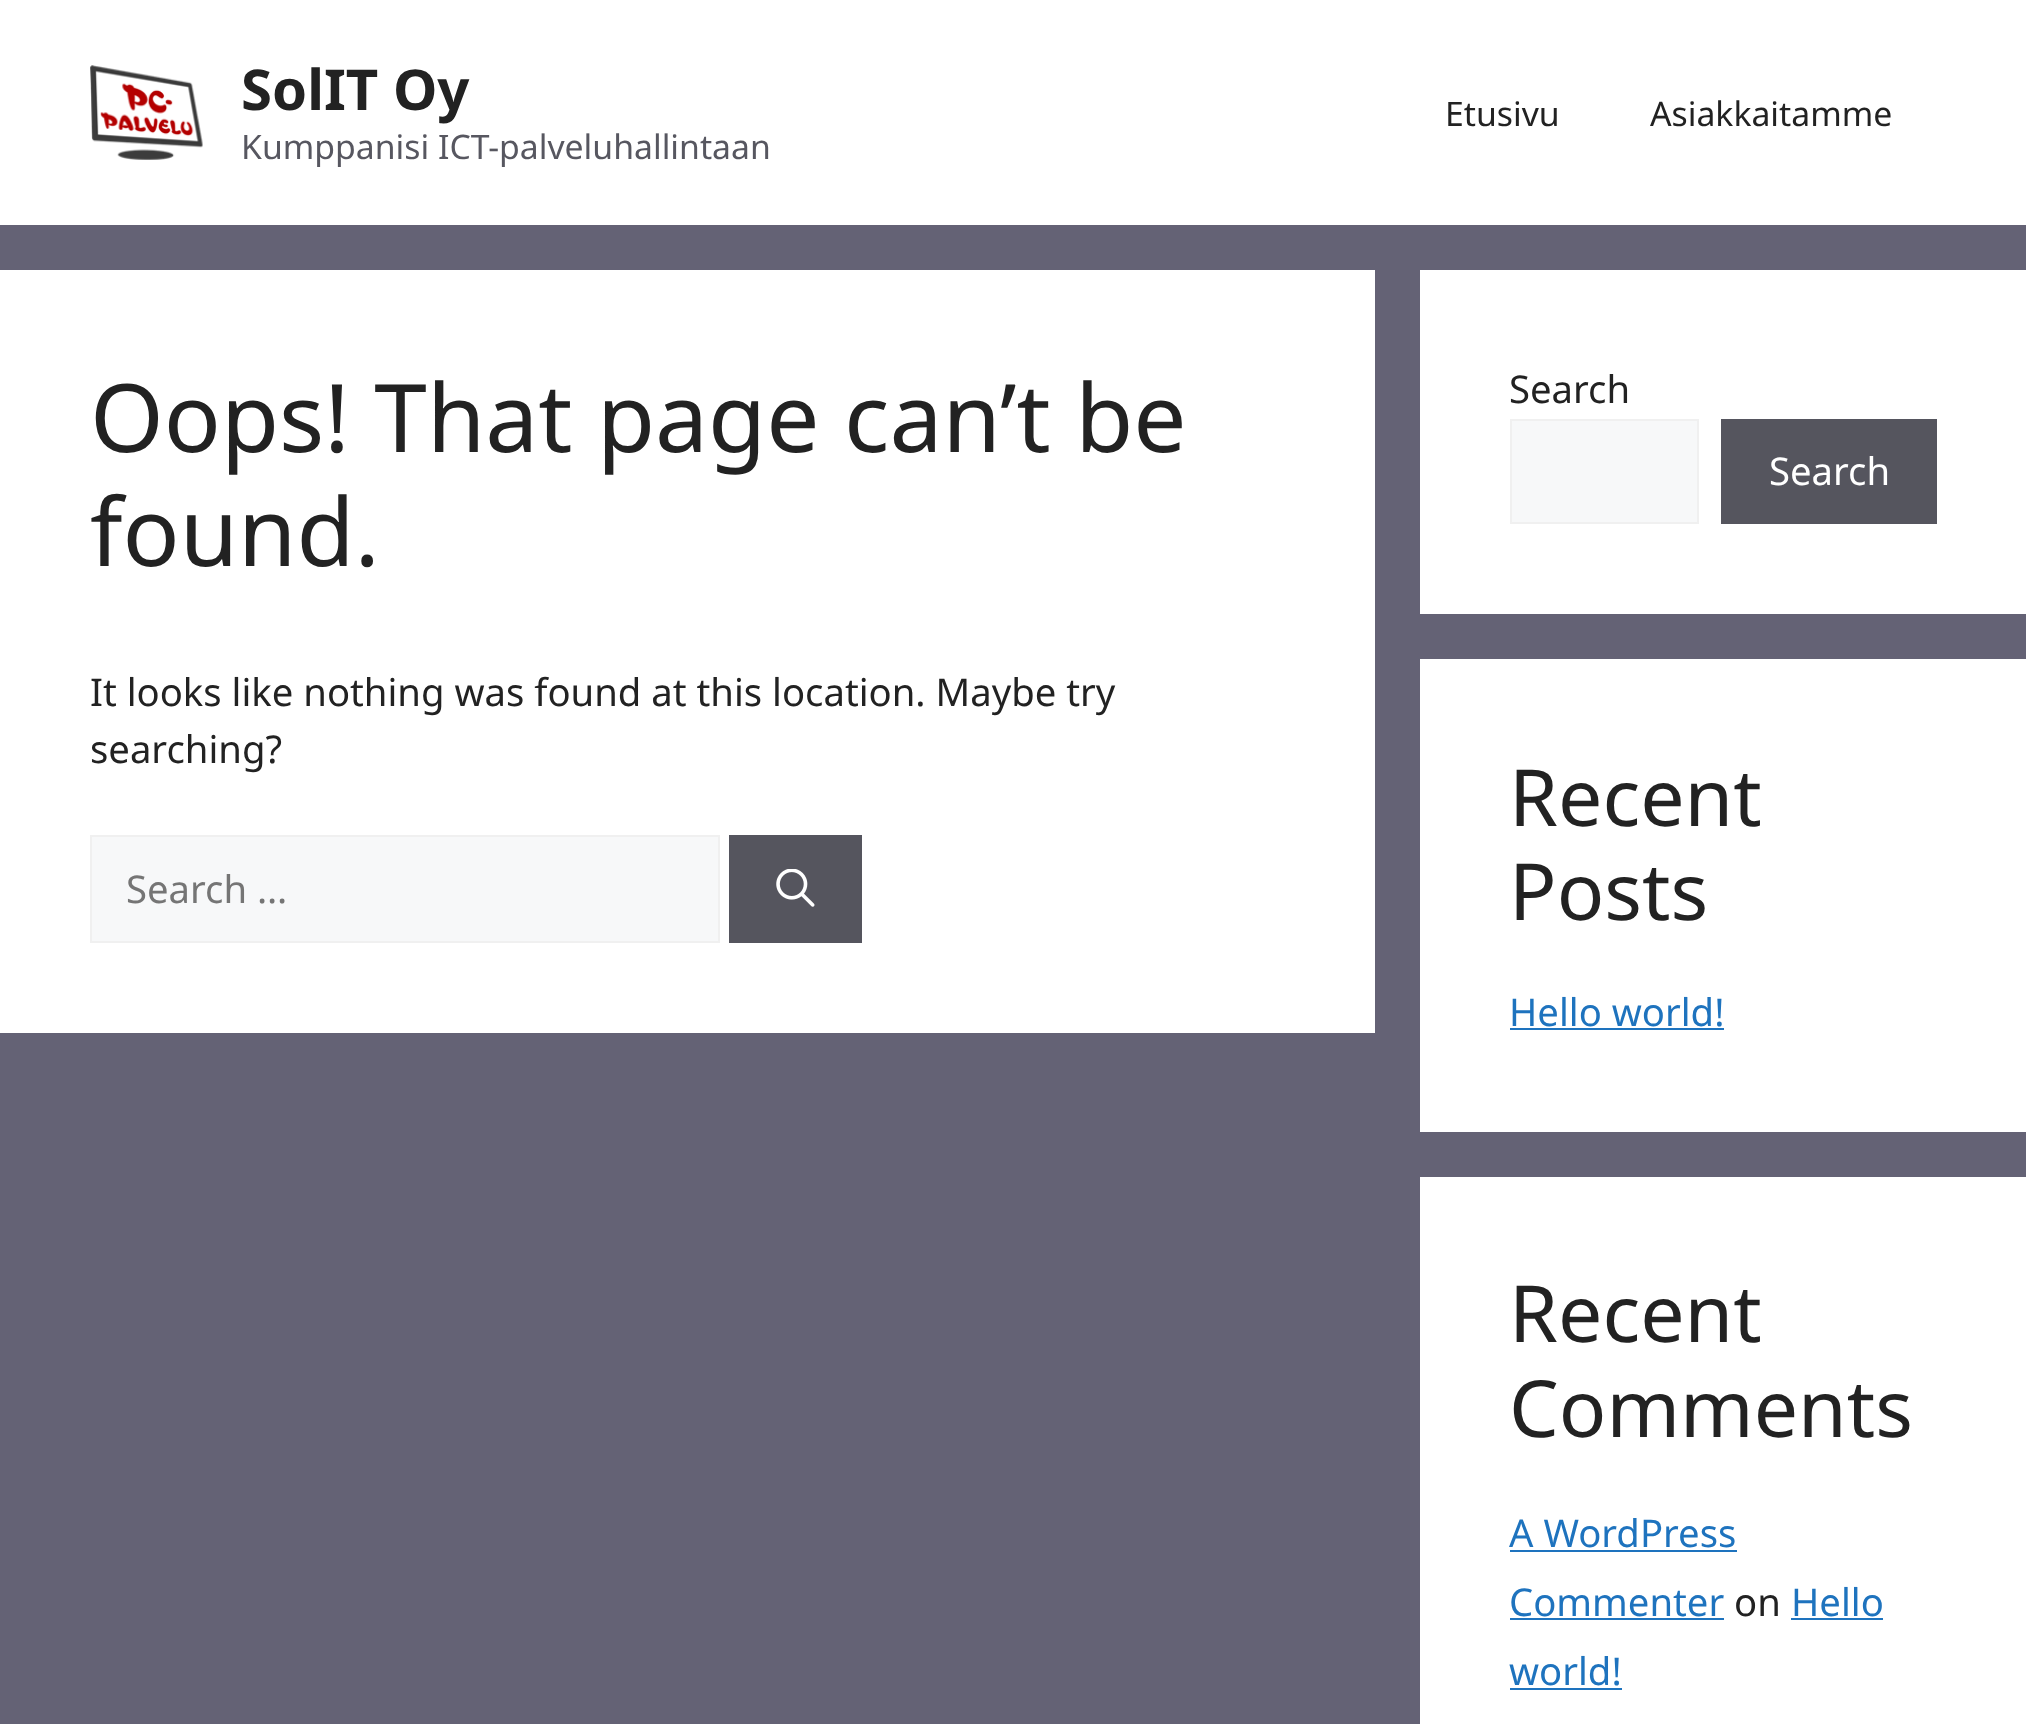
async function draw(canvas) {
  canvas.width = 2026;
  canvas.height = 1724;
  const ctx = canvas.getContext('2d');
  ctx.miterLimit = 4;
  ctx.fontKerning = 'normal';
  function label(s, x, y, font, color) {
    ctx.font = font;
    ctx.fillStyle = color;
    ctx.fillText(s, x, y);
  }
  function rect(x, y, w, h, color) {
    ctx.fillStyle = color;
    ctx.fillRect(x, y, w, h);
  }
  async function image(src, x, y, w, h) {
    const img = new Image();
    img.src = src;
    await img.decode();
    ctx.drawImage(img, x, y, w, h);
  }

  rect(0, 0, 2026, 1724, '#646275');
  rect(0, 0, 2026, 225, '#fff');
  await image('assets/img1.png', 90, 65, 113, 95);
  label('SolIT Oy', 241, 110, 'bold 56.25px Noto Sans', '#222');
  label('Kumppanisi ICT-palveluhallintaan', 241, 159, '33.75px Noto Sans', '#575760');
  label('Etusivu', 1445, 126, '33.75px Noto Sans', '#222');
  label('Asiakkaitamme', 1650, 126, '33.75px Noto Sans', '#222');
  rect(0, 270, 1375, 763, '#fff');
  label('Oops! That page can’t be', 90, 452, '94.5px Noto Sans', '#222');
  label('found.', 90, 566, '94.5px Noto Sans', '#222');
  label('It looks like nothing was found at this location. Maybe try', 90, 706, '38.25px Noto Sans', '#222');
  label('searching?', 90, 763, '38.25px Noto Sans', '#222');
  ctx.fillStyle = '#f7f8f9';
  ctx.beginPath();
  ctx.rect(91, 836, 628, 106);
  ctx.fill();
  ctx.strokeStyle = '#f0f0f0';
  ctx.lineWidth = 2;
  ctx.stroke();
  label('Search …', 126, 903, '38.25px Noto Sans', '#757575');
  rect(729, 835, 133, 108, '#55555e');
  await image('assets/img2.png', 776, 869, 39, 38);
  rect(1420, 270, 606, 344, '#fff');
  label('Search', 1509, 403, '38.25px Noto Sans', '#222');
  ctx.fillStyle = '#f7f8f9';
  ctx.beginPath();
  ctx.rect(1511, 420, 187, 103);
  ctx.fill();
  ctx.stroke();
  rect(1721, 419, 216, 105, '#55555e');
  label('Search', 1769, 485, '38.25px Noto Sans', '#fff');
  rect(1420, 659, 606, 473, '#fff');
  label('Recent', 1509, 826, '78.75px Noto Sans', '#222');
  label('Posts', 1509, 920, '78.75px Noto Sans', '#222');
  label('Hello world!', 1509, 1026, '38.25px Noto Sans', '#1e73be');
  rect(1510, 1028, 214, 2, '#1e73be');
  rect(1420, 1177, 606, 547, '#fff');
  label('Recent', 1509, 1342, '78.75px Noto Sans', '#222');
  label('Comments', 1509, 1437, '78.75px Noto Sans', '#222');
  label('A WordPress', 1509, 1547, '38.25px Noto Sans', '#1e73be');
  rect(1510, 1550, 227, 2, '#1e73be');
  label('Commenter', 1509, 1616, '38.25px Noto Sans', '#1e73be');
  rect(1510, 1618, 214, 2, '#1e73be');
  label('on', 1734, 1616, '38.25px Noto Sans', '#222');
  label('Hello', 1791, 1616, '38.25px Noto Sans', '#1e73be');
  rect(1791, 1618, 92, 2, '#1e73be');
  label('world!', 1509, 1685, '38.25px Noto Sans', '#1e73be');
  rect(1510, 1688, 112, 2, '#1e73be');
}

draw(document.querySelector('canvas'));
